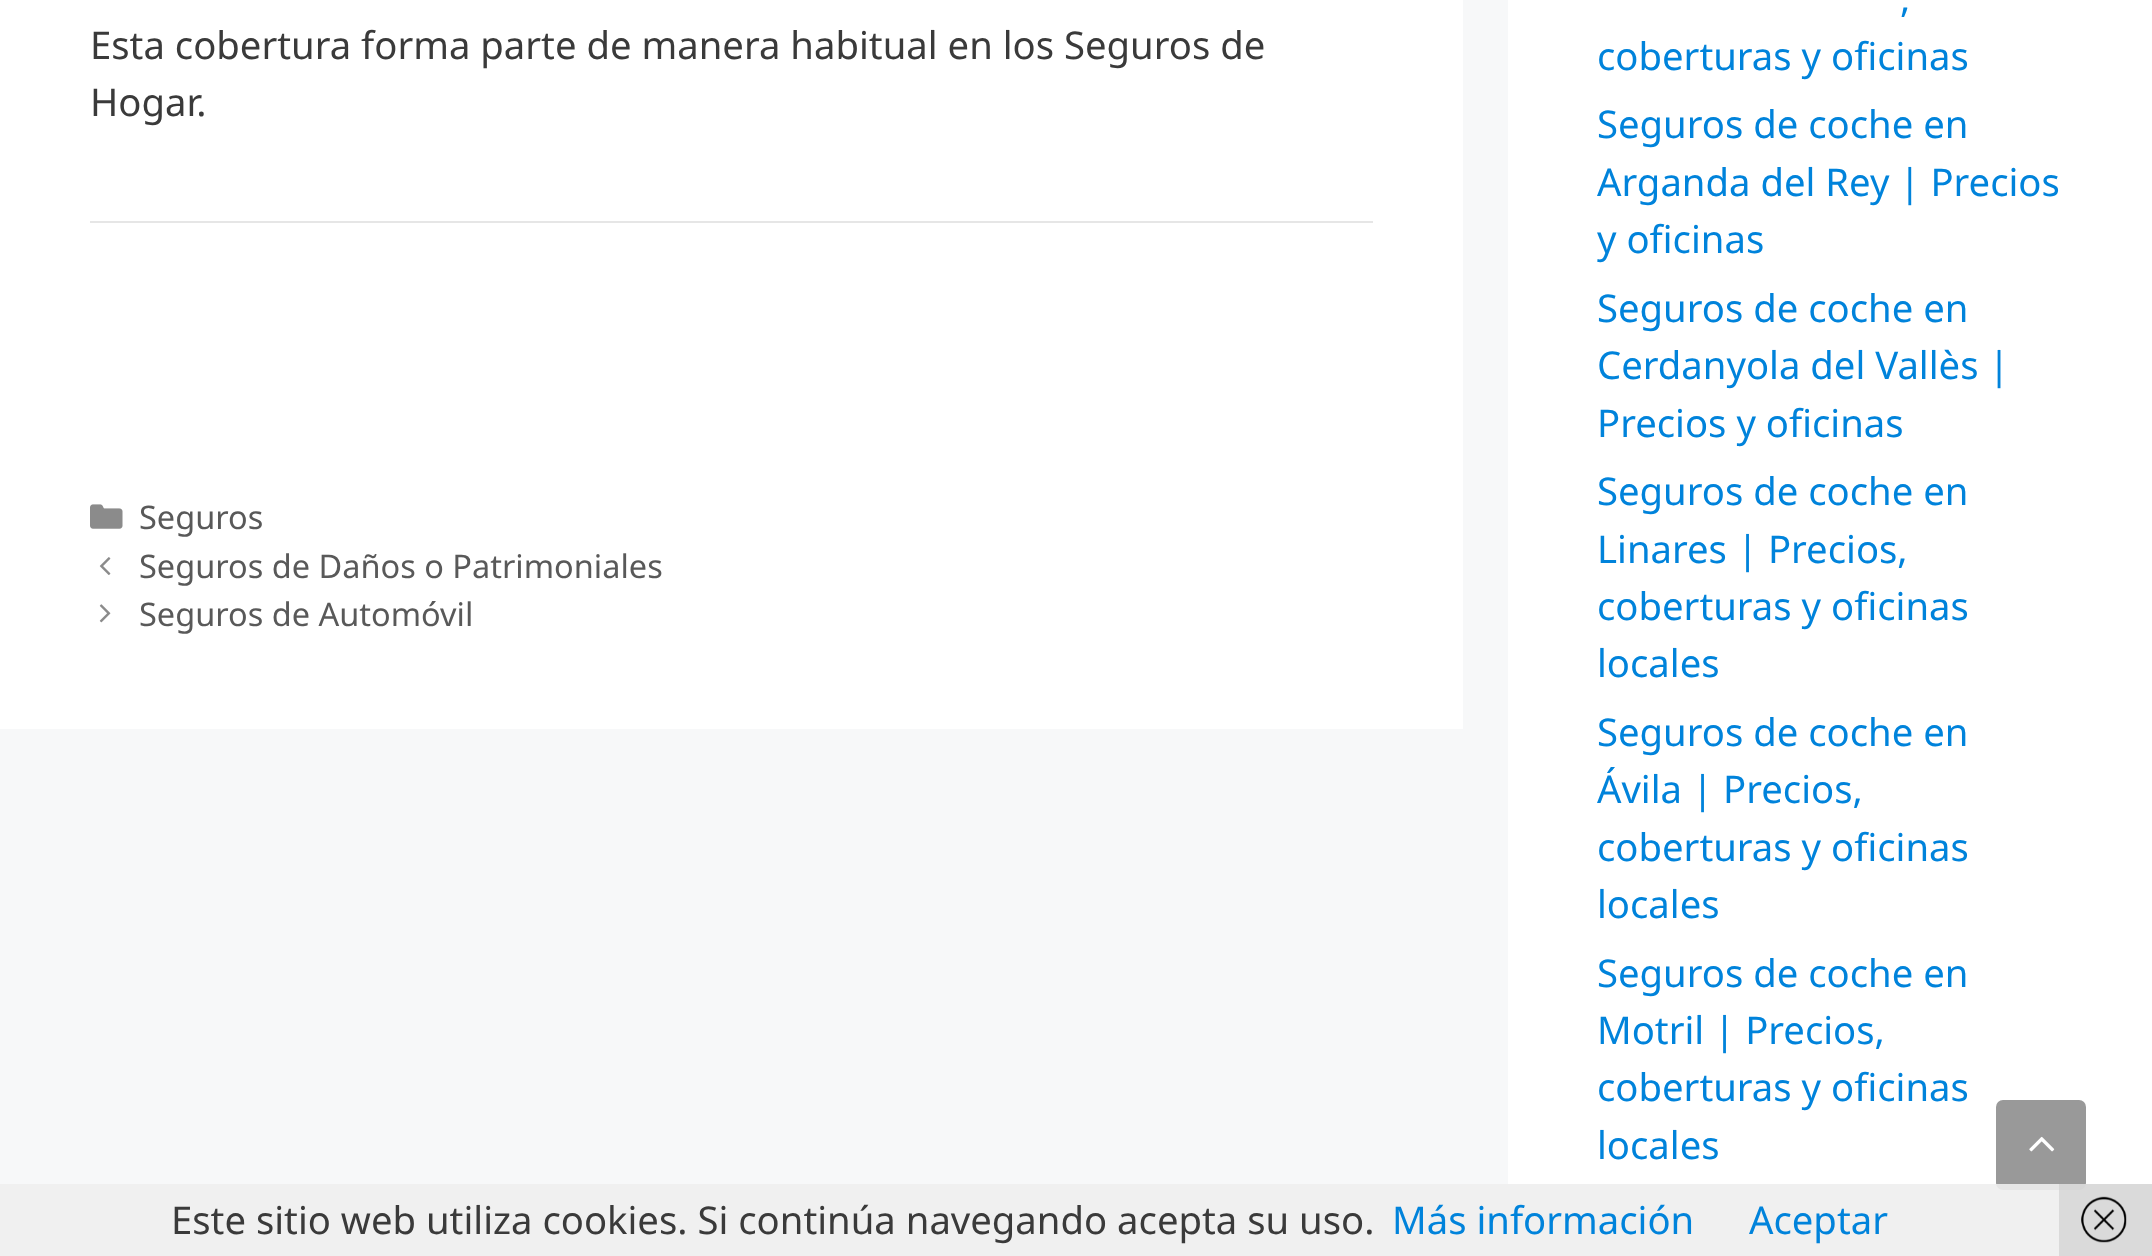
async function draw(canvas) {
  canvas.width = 2152;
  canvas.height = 1256;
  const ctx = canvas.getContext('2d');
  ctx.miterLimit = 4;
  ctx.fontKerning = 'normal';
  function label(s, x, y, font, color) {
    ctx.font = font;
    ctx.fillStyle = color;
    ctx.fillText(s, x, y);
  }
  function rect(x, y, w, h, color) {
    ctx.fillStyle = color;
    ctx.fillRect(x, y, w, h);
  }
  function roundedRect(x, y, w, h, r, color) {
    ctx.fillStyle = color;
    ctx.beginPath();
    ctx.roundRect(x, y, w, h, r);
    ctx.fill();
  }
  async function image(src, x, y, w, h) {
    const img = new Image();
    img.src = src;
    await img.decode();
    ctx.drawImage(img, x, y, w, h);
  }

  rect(0, 0, 2152, 1256, '#f7f8f9');
  rect(0, 0, 1463, 729, '#fff');
  label('Esta cobertura forma parte de manera habitual en los Seguros de', 90, 59, '38.25px Noto Sans', '#3a3a3a');
  label('Hogar.', 90, 116, '38.25px Noto Sans', '#3a3a3a');
  rect(90, 221, 1283, 2, '#e6e6e6');
  await image('assets/img1.png', 90, 504, 33, 25);
  label('Seguros', 139, 529, '32.5px Noto Sans', '#595959');
  await image('assets/img2.png', 99, 557, 12, 18);
  label('Seguros de Daños o Patrimoniales', 139, 578, '32.5px Noto Sans', '#595959');
  await image('assets/img3.png', 99, 604, 12, 19);
  label('Seguros de Automóvil', 139, 626, '32.5px Noto Sans', '#595959');
  rect(1508, 0, 644, 1256, '#fff');
  label(',', 1900, 12, '38.25px Noto Sans', '#0083db');
  label('coberturas y oficinas', 1597, 70, '38.25px Noto Sans', '#0083db');
  label('Seguros de coche en', 1597, 138, '38.25px Noto Sans', '#0083db');
  label('Arganda del Rey | Precios', 1597, 196, '38.25px Noto Sans', '#0083db');
  label('y oficinas', 1597, 253, '38.25px Noto Sans', '#0083db');
  label('Seguros de coche en', 1597, 322, '38.25px Noto Sans', '#0083db');
  label('Cerdanyola del Vallès |', 1597, 379, '38.25px Noto Sans', '#0083db');
  label('Precios y oficinas', 1597, 437, '38.25px Noto Sans', '#0083db');
  label('Seguros de coche en', 1597, 505, '38.25px Noto Sans', '#0083db');
  label('Linares | Precios,', 1597, 563, '38.25px Noto Sans', '#0083db');
  label('coberturas y oficinas', 1597, 620, '38.25px Noto Sans', '#0083db');
  label('locales', 1597, 677, '38.25px Noto Sans', '#0083db');
  label('Seguros de coche en', 1597, 746, '38.25px Noto Sans', '#0083db');
  label('Ávila | Precios,', 1597, 803, '38.25px Noto Sans', '#0083db');
  label('coberturas y oficinas', 1597, 861, '38.25px Noto Sans', '#0083db');
  label('locales', 1597, 918, '38.25px Noto Sans', '#0083db');
  label('Seguros de coche en', 1597, 987, '38.25px Noto Sans', '#0083db');
  label('Motril | Precios,', 1597, 1044, '38.25px Noto Sans', '#0083db');
  label('coberturas y oficinas', 1597, 1101, '38.25px Noto Sans', '#0083db');
  label('locales', 1597, 1159, '38.25px Noto Sans', '#0083db');
  roundedRect(1996, 1100, 90, 90, 7, '#999');
  await image('assets/img4.png', 2029, 1136, 26, 16);
  rect(0, 1184, 2152, 72, '#eeeeeee6');
  label('Este sitio web utiliza cookies. Si continúa navegando acepta su uso.', 171, 1234, '38.25px Noto Sans', '#3a3a3a');
  label('Más información', 1392, 1234, '38.25px Noto Sans', '#0083db');
  label('Aceptar', 1749, 1234, '38.25px Noto Sans', '#0083db');
  rect(2059, 1184, 93, 72, '#cccccc99');
  await image('assets/img5.png', 2081, 1196, 46, 47);
}

draw(document.querySelector('canvas'));
